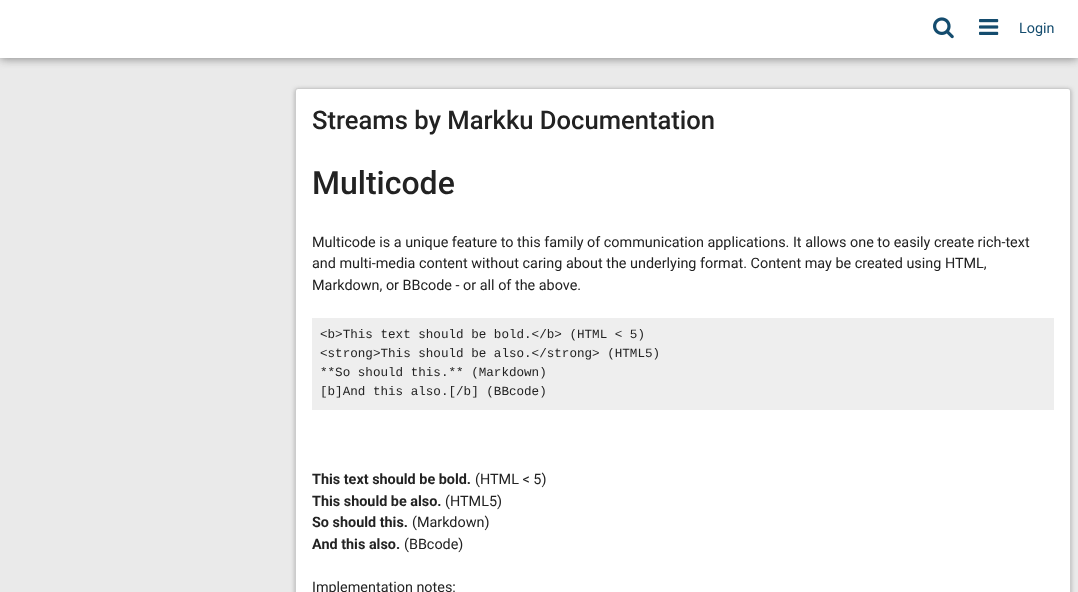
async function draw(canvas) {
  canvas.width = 1078;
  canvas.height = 592;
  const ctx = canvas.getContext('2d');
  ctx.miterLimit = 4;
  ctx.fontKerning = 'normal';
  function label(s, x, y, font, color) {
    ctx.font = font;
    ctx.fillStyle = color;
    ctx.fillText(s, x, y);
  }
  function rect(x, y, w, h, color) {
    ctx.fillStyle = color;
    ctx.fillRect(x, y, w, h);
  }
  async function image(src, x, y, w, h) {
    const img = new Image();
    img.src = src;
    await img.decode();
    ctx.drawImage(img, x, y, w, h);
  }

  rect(0, 0, 1078, 592, '#eaeaea');
  ctx.fillStyle = '#888';
  ctx.filter = 'blur(5px)';
  ctx.beginPath();
  ctx.rect(0, 1, 1078, 58);
  ctx.fill();
  ctx.filter = 'none';
  rect(0, 0, 1078, 58, '#fff');
  await image('assets/img1.png', 933, 17, 21, 22);
  await image('assets/img2.png', 979, 19, 20, 16);
  label('Login', 1019, 33, '14.4px Roboto', '#144c6e');
  ctx.fillStyle = '#aaa';
  ctx.filter = 'blur(2px)';
  ctx.beginPath();
  ctx.roundRect(295, 89, 776, 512, 3);
  ctx.fill();
  ctx.filter = 'none';
  ctx.fillStyle = '#fff';
  ctx.beginPath();
  ctx.roundRect(295.5, 88.5, 775, 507, 2.5);
  ctx.fill();
  ctx.strokeStyle = '#ccc';
  ctx.stroke();
  label('Streams by Markku Documentation', 312, 129, '500 25.6px Roboto', '#222');
  label('Multicode', 312, 194, '500 32px Roboto', '#222');
  label('Multicode is a unique feature to this family of communication applications. It allows one to easily create rich-text', 312, 247, '14.4px Roboto', '#222');
  label('and multi-media content without caring about the underlying format. Content may be created using HTML,', 312, 268, '14.4px Roboto', '#222');
  label('Markdown, or BBcode - or all of the above.', 312, 290, '14.4px Roboto', '#222');
  rect(312, 318, 742, 92, '#eee');
  label('<b>This text should be bold.<\/b> (HTML < 5)', 320, 338, '12.6px Liberation Mono', '#222');
  label('<strong>This should be also.<\/strong> (HTML5)', 320, 357, '12.6px Liberation Mono', '#222');
  label('**So should this.** (Markdown)', 320, 376, '12.6px Liberation Mono', '#222');
  label('[b]And this also.[/b] (BBcode)', 320, 395, '12.6px Liberation Mono', '#222');
  label('This text should be bold.', 312, 484, 'bold 14.4px Roboto', '#222');
  label('(HTML < 5)', 475, 484, '14.4px Roboto', '#222');
  label('This should be also.', 312, 506, 'bold 14.4px Roboto', '#222');
  label('(HTML5)', 445, 506, '14.4px Roboto', '#222');
  label('So should this.', 312, 527, 'bold 14.4px Roboto', '#222');
  label('(Markdown)', 412, 527, '14.4px Roboto', '#222');
  label('And this also.', 312, 549, 'bold 14.4px Roboto', '#222');
  label('(BBcode)', 404, 549, '14.4px Roboto', '#222');
  label('Implementation notes:', 312, 592, '14.4px Roboto', '#222');
}

draw(document.querySelector('canvas'));
